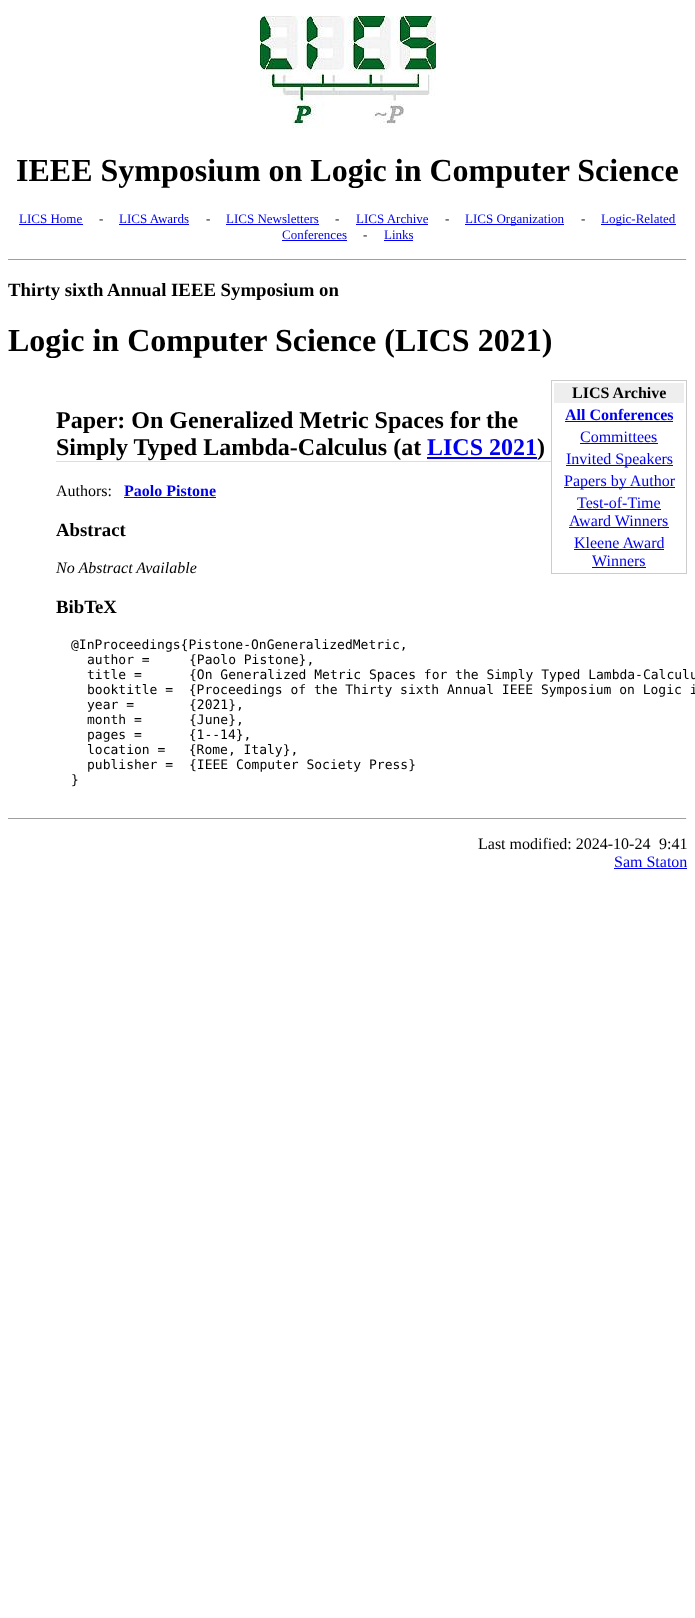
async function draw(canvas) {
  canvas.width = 695;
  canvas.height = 1618;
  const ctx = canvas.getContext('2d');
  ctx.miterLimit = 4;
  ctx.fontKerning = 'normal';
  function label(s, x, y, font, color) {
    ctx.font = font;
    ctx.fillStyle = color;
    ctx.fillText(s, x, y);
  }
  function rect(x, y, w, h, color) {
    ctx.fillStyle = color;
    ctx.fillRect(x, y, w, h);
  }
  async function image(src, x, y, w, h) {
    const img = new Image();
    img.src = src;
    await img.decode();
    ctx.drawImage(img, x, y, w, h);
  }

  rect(0, 0, 695, 1618, '#fff');
  await image('assets/img1.png', 260, 16, 176, 112);
  label('IEEE Symposium on Logic in Computer Science', 16, 181, 'bold 32px Liberation Serif', '#000');
  label('LICS Home', 19, 223, '13px Liberation Serif', '#00e');
  rect(19, 224, 64, 1, '#00e');
  label('-', 99, 223, '13px Liberation Serif', '#000');
  label('LICS Awards', 119, 223, '13px Liberation Serif', '#00e');
  rect(119, 224, 70, 1, '#00e');
  label('-', 206, 223, '13px Liberation Serif', '#000');
  label('LICS Newsletters', 226, 223, '13px Liberation Serif', '#00e');
  rect(226, 224, 93, 1, '#00e');
  label('-', 335, 223, '13px Liberation Serif', '#000');
  label('LICS Archive', 356, 223, '13px Liberation Serif', '#00e');
  rect(356, 224, 72, 1, '#00e');
  label('-', 445, 223, '13px Liberation Serif', '#000');
  rect(465, 224, 99, 1, '#00e');
  label('LICS Organization', 465, 223, '13px Liberation Serif', '#00e');
  label('-', 581, 223, '13px Liberation Serif', '#000');
  rect(601, 224, 75, 1, '#00e');
  label('Logic-Related', 601, 223, '13px Liberation Serif', '#00e');
  label('Conferences', 282, 239, '13px Liberation Serif', '#00e');
  rect(282, 240, 65, 1, '#00e');
  label('-', 363, 239, '13px Liberation Serif', '#000');
  label('Links', 384, 239, '13px Liberation Serif', '#00e');
  rect(384, 240, 29, 1, '#00e');
  rect(8, 259, 679, 1, '#9f9f9f');
  rect(686, 259, 1, 1, '#eee');
  label('Thirty sixth Annual IEEE Symposium on', 8, 296, 'bold 18.75px Liberation Serif', '#000');
  label('Logic in Computer Science (LICS 2021)', 8, 351, 'bold 32px Liberation Serif', '#000');
  ctx.strokeStyle = '#ccc';
  ctx.strokeRect(551.5, 380.5, 135, 193);
  rect(554, 383, 130, 20, '#eee');
  label('LICS Archive', 572, 398, 'bold 16px Liberation Serif', '#000');
  label('All Conferences', 565, 420, 'bold 16px Liberation Serif', '#00e');
  rect(565, 421, 108, 1, '#00e');
  label('Committees', 580, 442, '16px Liberation Serif', '#00e');
  rect(580, 443, 78, 1, '#00e');
  rect(566, 465, 107, 1, '#00e');
  label('Invited Speakers', 566, 464, '16px Liberation Serif', '#00e');
  rect(564, 487, 111, 1, '#00e');
  label('Papers by Author', 564, 486, '16px Liberation Serif', '#00e');
  label('Test-of-Time', 577, 508, '16px Liberation Serif', '#00e');
  rect(577, 509, 84, 1, '#00e');
  label('Award Winners', 569, 526, '16px Liberation Serif', '#00e');
  rect(569, 527, 100, 1, '#00e');
  label('Kleene Award', 574, 548, '16px Liberation Serif', '#00e');
  rect(574, 549, 90, 1, '#00e');
  label('Winners', 592, 566, '16px Liberation Serif', '#00e');
  rect(592, 567, 54, 1, '#00e');
  rect(56, 461, 495, 1, '#ddd');
  label('Paper: On Generalized Metric Spaces for the', 56, 428, 'bold 24px Liberation Serif', '#000');
  label('Simply Typed Lambda-Calculus (at', 56, 455, 'bold 24px Liberation Serif', '#000');
  label('LICS 2021', 427, 455, 'bold 24px Liberation Serif', '#00e');
  rect(427, 457, 110, 2, '#00e');
  label(')', 537, 455, 'bold 24px Liberation Serif', '#000');
  label('Authors:', 56, 496, '16px Liberation Serif', '#000');
  label('Paolo Pistone', 124, 496, 'bold 16px Liberation Serif', '#00e');
  rect(124, 497, 92, 1, '#00e');
  label('Abstract', 56, 536, 'bold 18.75px Liberation Serif', '#000');
  label('No Abstract Available', 56, 573, 'italic 16px Liberation Serif', '#000');
  label('BibTeX', 56, 613, 'bold 18.75px Liberation Serif', '#000');
  label('@InProceedings{Pistone-OnGeneralizedMetric,', 71, 649, '13px DejaVu Sans Mono', '#000');
  label('author =', 87, 664, '13px DejaVu Sans Mono', '#000');
  label('{Paolo Pistone},', 189, 664, '13px DejaVu Sans Mono', '#000');
  label('title =', 87, 679, '13px DejaVu Sans Mono', '#000');
  label('{On Generalized Metric Spaces for the Simply Typed Lambda-Calculu', 189, 679, '13px DejaVu Sans Mono', '#000');
  label('booktitle =  {Proceedings of the Thirty sixth Annual IEEE Symposium on Logic i', 87, 694, '13px DejaVu Sans Mono', '#000');
  label('year =', 87, 709, '13px DejaVu Sans Mono', '#000');
  label('{2021},', 189, 709, '13px DejaVu Sans Mono', '#000');
  label('month =', 87, 724, '13px DejaVu Sans Mono', '#000');
  label('{June},', 189, 724, '13px DejaVu Sans Mono', '#000');
  label('pages =      {1--14},', 87, 739, '13px DejaVu Sans Mono', '#000');
  label('location =   {Rome, Italy},', 87, 754, '13px DejaVu Sans Mono', '#000');
  label('publisher =', 87, 769, '13px DejaVu Sans Mono', '#000');
  label('{IEEE Computer Society Press}', 189, 769, '13px DejaVu Sans Mono', '#000');
  label('}', 71, 784, '13px DejaVu Sans Mono', '#000');
  rect(8, 818, 679, 1, '#9f9f9f');
  rect(686, 818, 1, 1, '#eee');
  label('Last modified: 2024-10-24', 478, 849, '16px Liberation Serif', '#000');
  label('9:41', 659, 849, '16px Liberation Serif', '#000');
  label('Sam Staton', 614, 867, '16px Liberation Serif', '#00e');
  rect(614, 868, 73, 1, '#00e');
}

draw(document.querySelector('canvas'));
